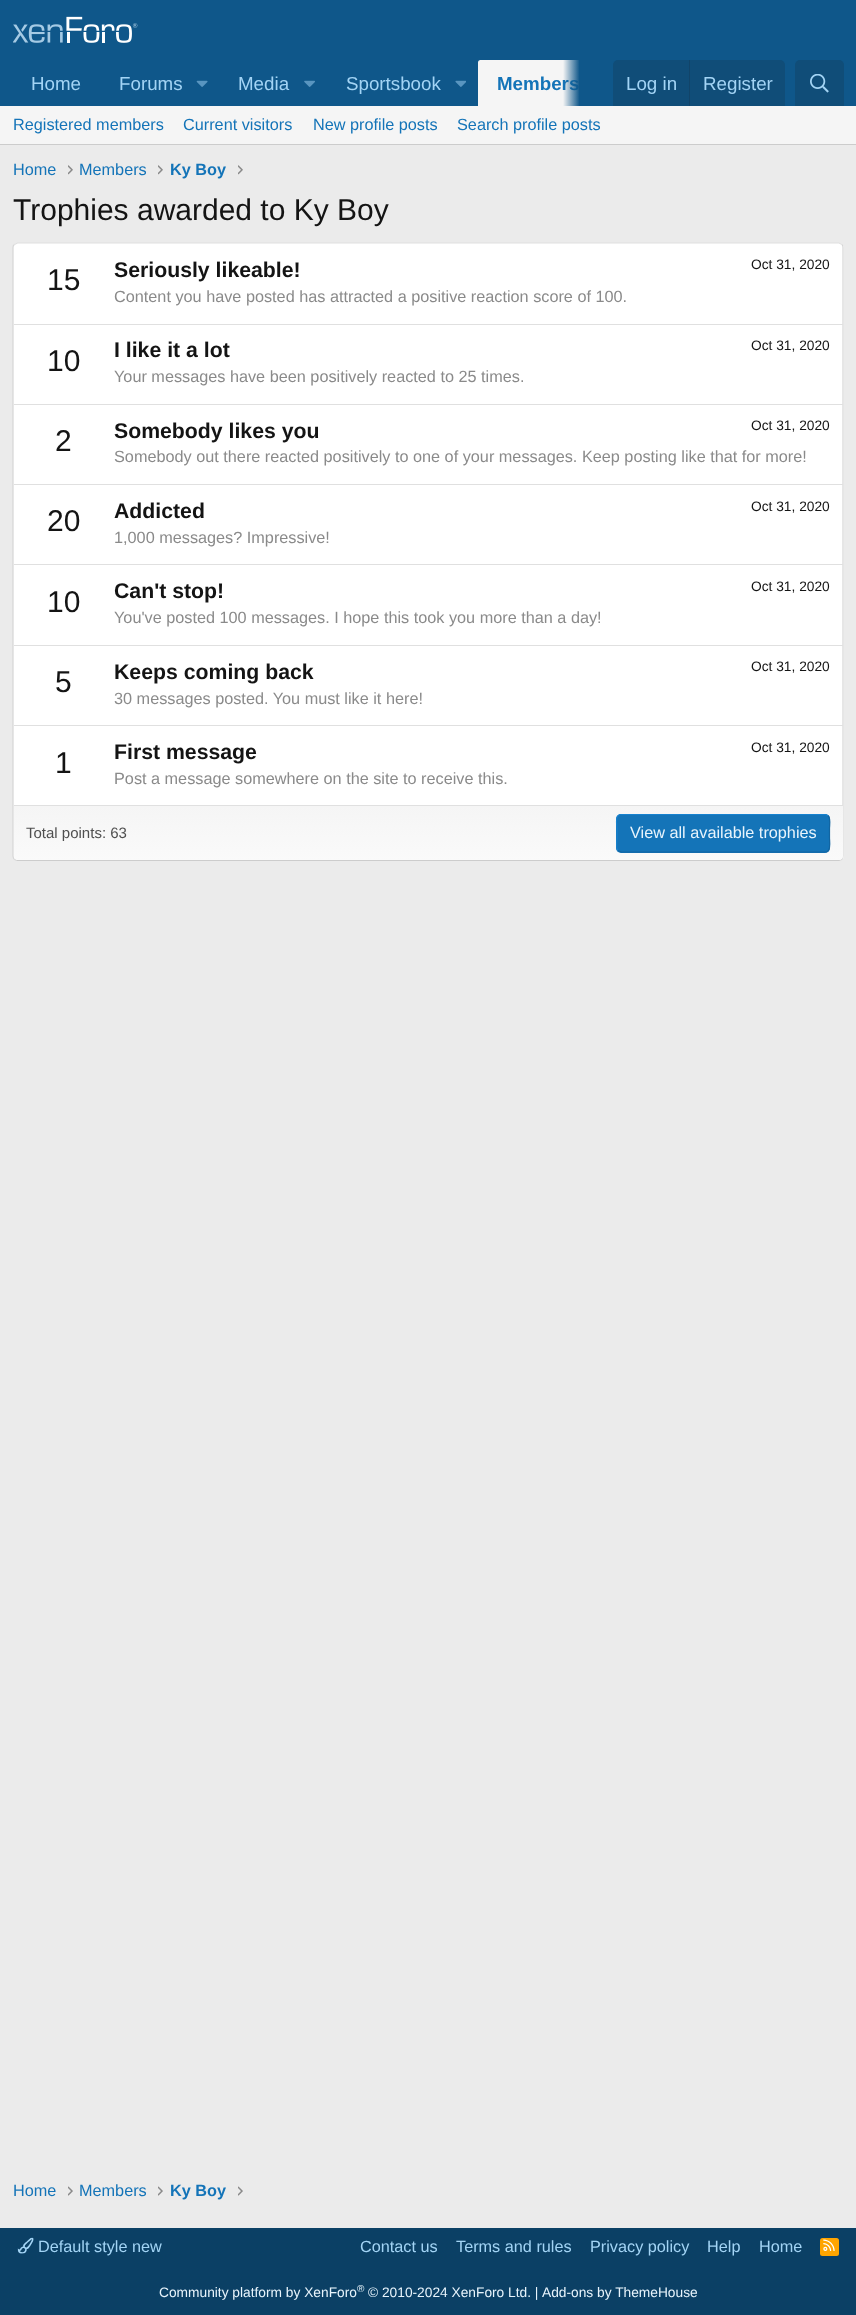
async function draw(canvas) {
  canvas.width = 856;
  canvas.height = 2315;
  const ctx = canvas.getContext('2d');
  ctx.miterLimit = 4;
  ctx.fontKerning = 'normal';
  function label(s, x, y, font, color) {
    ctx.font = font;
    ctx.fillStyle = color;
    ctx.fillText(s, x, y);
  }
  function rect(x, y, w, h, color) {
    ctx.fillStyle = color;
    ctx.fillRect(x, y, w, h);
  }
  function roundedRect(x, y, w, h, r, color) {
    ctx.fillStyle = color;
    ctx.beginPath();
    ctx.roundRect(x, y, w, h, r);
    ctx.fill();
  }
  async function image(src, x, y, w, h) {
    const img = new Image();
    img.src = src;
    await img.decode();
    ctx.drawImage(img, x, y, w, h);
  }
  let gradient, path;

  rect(0, 0, 856, 2315, '#ebebeb');
  rect(0, 0, 856, 106, '#0f578a');
  await image('assets/img1.png', 13, 16, 125, 27);
  label('Home', 31, 90, '18.75px Liberation Sans', '#a3d4f5');
  label('Forums', 119, 90, '18.75px Liberation Sans', '#a3d4f5');
  await image('assets/img2.png', 196, 80, 12, 7);
  label('Media', 238, 90, '18.75px Liberation Sans', '#a3d4f5');
  await image('assets/img3.png', 304, 80, 11, 7);
  label('Sportsbook', 346, 90, '18.75px Liberation Sans', '#a3d4f5');
  await image('assets/img4.png', 455, 80, 11, 7);
  ctx.fillStyle = '#f5f5f5';
  ctx.beginPath();
  ctx.roundRect(478, 60, 120, 46, [2.5, 2.5, 0, 0]);
  ctx.fill();
  label('Members', 497, 90, 'bold 18.75px Liberation Sans', '#1474b8');
  gradient = ctx.createLinearGradient(563, 83, 613, 83);
  gradient.addColorStop(0, '#0f578a00');
  gradient.addColorStop(0.33, '#0f578a');
  ctx.fillStyle = gradient;
  ctx.fillRect(563, 60, 35, 46);
  ctx.fillStyle = '#104d78';
  ctx.beginPath();
  ctx.roundRect(613, 60, 172, 46, [5, 5, 0, 0]);
  ctx.fill();
  label('Log in', 626, 90, '18.75px Liberation Sans', '#a3d4f5');
  rect(689, 60, 1, 46, '#114469');
  label('Register', 703, 90, '18.75px Liberation Sans', '#a3d4f5');
  ctx.fillStyle = '#104d78';
  ctx.beginPath();
  ctx.roundRect(795, 60, 49, 46, [5, 5, 0, 0]);
  ctx.fill();
  await image('assets/img5.png', 810, 74, 19, 19);
  rect(0, 106, 856, 38, '#f5f5f5');
  rect(0, 144, 856, 1, '#ccc');
  label('Registered members', 13, 130, '16.25px Liberation Sans', '#1474b8');
  label('Current visitors', 183, 130, '16.25px Liberation Sans', '#1474b8');
  label('New profile posts', 313, 130, '16.25px Liberation Sans', '#1474b8');
  label('Search profile posts', 457, 130, '16.25px Liberation Sans', '#1474b8');
  label('Home', 13, 175, '16.25px Liberation Sans', '#1474b8');
  await image('assets/img6.png', 68, 165, 5, 10);
  label('Members', 79, 175, '16.25px Liberation Sans', '#1474b8');
  await image('assets/img6.png', 158, 165, 5, 10);
  label('Ky Boy', 170, 175, 'bold 16.25px Liberation Sans', '#1474b8');
  await image('assets/img6.png', 238, 165, 5, 10);
  label('Trophies awarded to Ky Boy', 13, 220, '30px Liberation Sans', '#141414');
  roundedRect(13, 243, 831, 618, 5, '#fff');
  path = new Path2D('M14.5 244.5L17.5 243H839L842 244.5');
  ctx.strokeStyle = '#e0e0e0';
  ctx.lineWidth = 1.2;
  ctx.stroke(path);
  path = new Path2D('M842 244.5C842.5 245 843 246.5 843 247.5V856C843 857.5 842.5 858.5 842 859.5');
  ctx.strokeStyle = '#d6d6d6';
  ctx.stroke(path);
  path = new Path2D('M842 859.5L839 860.5H17.5L14.5 859.5');
  ctx.strokeStyle = '#ccc';
  ctx.stroke(path);
  path = new Path2D('M14.5 859.5C13.5 858.5 13 857.5 13 856V247.5C13 246.5 13.5 245 14.5 244.5');
  ctx.strokeStyle = '#d6d6d6';
  ctx.stroke(path);
  label('15', 47, 290, '30px Liberation Sans', '#141414');
  label('Seriously likeable!', 114, 277, 'bold 21.25px Liberation Sans', '#141414');
  label('Oct 31, 2020', 751, 269, '13.75px Liberation Sans', '#141414');
  label('Content you have posted has attracted a positive reaction score of 100.', 114, 302, '16.25px Liberation Sans', '#8a8a8a');
  rect(14, 324, 829, 1, '#e0e0e0');
  label('10', 47, 371, '30px Liberation Sans', '#141414');
  label('I like it a lot', 114, 357, 'bold 21.25px Liberation Sans', '#141414');
  label('Oct 31, 2020', 751, 350, '13.75px Liberation Sans', '#141414');
  label('Your messages have been positively reacted to 25 times.', 114, 382, '16.25px Liberation Sans', '#8a8a8a');
  rect(14, 404, 829, 1, '#e0e0e0');
  label('2', 55, 451, '30px Liberation Sans', '#141414');
  label('Somebody likes you', 114, 438, 'bold 21.25px Liberation Sans', '#141414');
  label('Oct 31, 2020', 751, 430, '13.75px Liberation Sans', '#141414');
  label('Somebody out there reacted positively to one of your messages. Keep posting like that for more!', 114, 462, '16.25px Liberation Sans', '#8a8a8a');
  rect(14, 484, 829, 1, '#e0e0e0');
  label('20', 47, 531, '30px Liberation Sans', '#141414');
  label('Addicted', 114, 518, 'bold 21.25px Liberation Sans', '#141414');
  label('Oct 31, 2020', 751, 511, '13.75px Liberation Sans', '#141414');
  label('1,000 messages? Impressive!', 114, 543, '16.25px Liberation Sans', '#8a8a8a');
  rect(14, 564, 829, 1, '#e0e0e0');
  label('10', 47, 612, '30px Liberation Sans', '#141414');
  label('Can\'t stop!', 114, 598, 'bold 21.25px Liberation Sans', '#141414');
  label('Oct 31, 2020', 751, 591, '13.75px Liberation Sans', '#141414');
  label('You\'ve posted 100 messages. I hope this took you more than a day!', 114, 623, '16.25px Liberation Sans', '#8a8a8a');
  rect(14, 645, 829, 1, '#e0e0e0');
  label('5', 55, 692, '30px Liberation Sans', '#141414');
  label('Keeps coming back', 114, 679, 'bold 21.25px Liberation Sans', '#141414');
  label('Oct 31, 2020', 751, 671, '13.75px Liberation Sans', '#141414');
  label('30 messages posted. You must like it here!', 114, 704, '16.25px Liberation Sans', '#8a8a8a');
  rect(14, 725, 829, 1, '#e0e0e0');
  label('1', 55, 773, '30px Liberation Sans', '#141414');
  label('First message', 114, 759, 'bold 21.25px Liberation Sans', '#141414');
  label('Oct 31, 2020', 751, 752, '13.75px Liberation Sans', '#141414');
  label('Post a message somewhere on the site to receive this.', 114, 784, '16.25px Liberation Sans', '#8a8a8a');
  gradient = ctx.createLinearGradient(428, 806, 428, 860);
  gradient.addColorStop(0, '#f5f5f5');
  gradient.addColorStop(1, '#fafafa');
  ctx.fillStyle = gradient;
  ctx.beginPath();
  ctx.roundRect(14, 806, 829, 54, [0, 0, 4, 4]);
  ctx.fill();
  rect(14, 805, 829, 1, '#e0e0e0');
  label('Total points: 63', 26, 838, '15px Liberation Sans', '#4f4f4f');
  roundedRect(616, 814, 214, 39, 5, '#1474b8');
  path = new Path2D('M828 815.5C831 818.5 829.5 825 829.5 828.5V838C829.5 841 831.5 852 825 852H621L618 850.5');
  ctx.strokeStyle = '#1265a1';
  ctx.stroke(path);
  path = new Path2D('M618 850.5C615.5 848 617 841 617 838V828.5C617 825 614.5 814.5 621 814.5H825L828 815.5');
  ctx.strokeStyle = '#1782cf';
  ctx.stroke(path);
  label('View all available trophies', 630, 838, '16.25px Liberation Sans', '#e8f4fc');
  label('Home', 13, 2196, '16.25px Liberation Sans', '#1474b8');
  await image('assets/img7.png', 68, 2186, 5, 10);
  label('Members', 79, 2196, '16.25px Liberation Sans', '#1474b8');
  await image('assets/img7.png', 158, 2186, 5, 10);
  label('Ky Boy', 170, 2196, 'bold 16.25px Liberation Sans', '#1474b8');
  await image('assets/img7.png', 238, 2186, 5, 10);
  rect(0, 2228, 856, 87, '#0b4065');
  await image('assets/img8.png', 17, 2237, 17, 17);
  label('Default style new', 38, 2252, '16.25px Liberation Sans', '#a3d4f5');
  label('Contact us', 360, 2252, '16.25px Liberation Sans', '#a3d4f5');
  label('Terms and rules', 456, 2252, '16.25px Liberation Sans', '#a3d4f5');
  label('Privacy policy', 590, 2252, '16.25px Liberation Sans', '#a3d4f5');
  label('Help', 707, 2252, '16.25px Liberation Sans', '#a3d4f5');
  label('Home', 759, 2252, '16.25px Liberation Sans', '#a3d4f5');
  roundedRect(820, 2238, 19, 18, 2.5, '#ffa500');
  await image('assets/img9.png', 823, 2239, 12, 12);
  label('Community platform by XenForo', 159, 2297, '13.75px Liberation Sans', '#e8f4fc');
  label('®', 357, 2292, '10px Liberation Sans', '#e8f4fc');
  label('© 2010-2024 XenForo Ltd. |', 368, 2297, '13.75px Liberation Sans', '#e8f4fc');
  label('Add-ons by ThemeHouse', 542, 2297, '13.75px Liberation Sans', '#e8f4fc');
}

draw(document.querySelector('canvas'));
